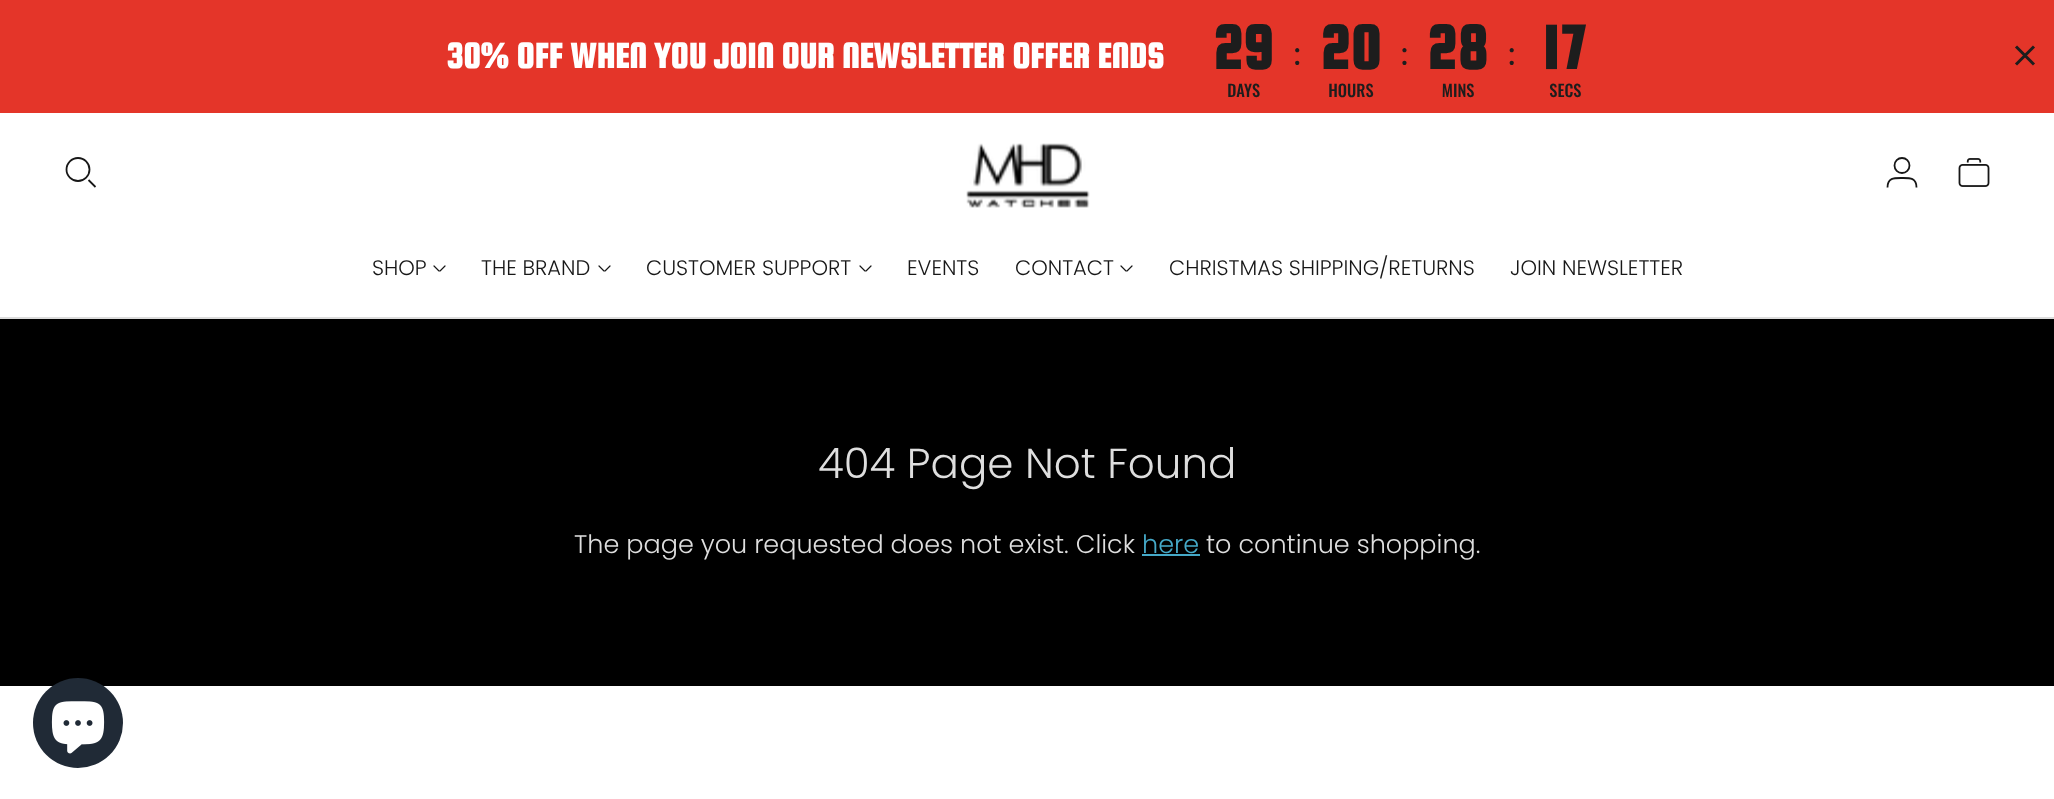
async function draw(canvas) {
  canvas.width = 2054;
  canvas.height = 799;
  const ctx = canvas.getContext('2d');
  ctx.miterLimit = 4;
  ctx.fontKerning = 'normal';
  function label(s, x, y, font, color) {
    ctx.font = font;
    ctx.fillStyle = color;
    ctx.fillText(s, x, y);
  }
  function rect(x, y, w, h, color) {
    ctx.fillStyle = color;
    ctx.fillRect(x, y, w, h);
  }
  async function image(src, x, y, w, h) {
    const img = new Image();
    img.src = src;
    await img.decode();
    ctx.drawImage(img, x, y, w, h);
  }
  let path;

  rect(0, 0, 2054, 799, '#000');
  rect(0, 0, 2054, 113, '#e43529');
  label('30% OFF WHEN YOU JOIN OUR NEWSLETTER OFFER ENDS', 446, 68, 'bold 37.5px Squada One', '#fff');
  await image('assets/img1.png', 1215, 24, 371, 74);
  path = new Path2D('M2034 46.5L2016 64.5M2034 64.5L2016 46.5');
  ctx.strokeStyle = '#1d1d1d';
  ctx.lineWidth = 3;
  ctx.stroke(path);
  rect(0, 113, 2054, 204, '#fff');
  rect(0, 317, 2054, 2, '#dcdcdc');
  ctx.beginPath();
  ctx.arc(78, 169.5, 11.5, 0, 2 * Math.PI);
  ctx.strokeStyle = '#171717';
  ctx.lineWidth = 1.8;
  ctx.stroke();
  path = new Path2D('M88.5 180L95.5 187');
  ctx.stroke(path);
  await image('assets/img2.png', 966, 143, 124, 65);
  ctx.beginPath();
  ctx.arc(1902, 165.5, 7.5, 0, 2 * Math.PI);
  ctx.stroke();
  path = new Path2D('M1887.5 187.5C1887.5 177.5 1894.5 178 1902 178C1909.5 178 1916.5 177.5 1916.5 187.5');
  ctx.stroke(path);
  await image('assets/img3.png', 1958, 158, 32, 29);
  label('SHOP', 372, 275, '300 21px Poppins', '#171717');
  path = new Path2D('M434 266L439 271H440L445 266');
  ctx.lineWidth = 1.2;
  ctx.lineCap = 'round';
  ctx.lineJoin = 'round';
  ctx.stroke(path);
  label('THE BRAND', 481, 275, '300 21px Poppins', '#171717');
  path = new Path2D('M599 266L604 271H605L610 266');
  ctx.stroke(path);
  label('CUSTOMER SUPPORT', 646, 275, '300 21px Poppins', '#171717');
  path = new Path2D('M860 266L865 271H866L871 266');
  ctx.stroke(path);
  label('EVENTS', 907, 275, '300 21px Poppins', '#171717');
  label('CONTACT', 1015, 275, '300 21px Poppins', '#171717');
  path = new Path2D('M1121 266L1126 271H1127L1132 266');
  ctx.stroke(path);
  label('CHRISTMAS SHIPPING/RETURNS', 1169, 275, '300 21px Poppins', '#171717');
  label('JOIN NEWSLETTER', 1510, 275, '300 21px Poppins', '#171717');
  label('404 Page Not Found', 818, 478, '300 42px Poppins', '#dedede');
  label('The page you requested does not exist. Click', 574, 553, '300 25.5px Poppins', '#dedede');
  label('here', 1142, 553, '300 25.5px Poppins', '#45a9c8');
  rect(1142, 554, 58, 2, '#45a9c8');
  label('to continue shopping.', 1206, 553, '300 25.5px Poppins', '#dedede');
  rect(0, 686, 2054, 113, '#fff');
  ctx.fillStyle = '#202a36';
  ctx.beginPath();
  ctx.arc(78, 723, 45, 0, 2 * Math.PI);
  ctx.fill();
  await image('assets/img4.png', 51, 701, 54, 53);
}

draw(document.querySelector('canvas'));
